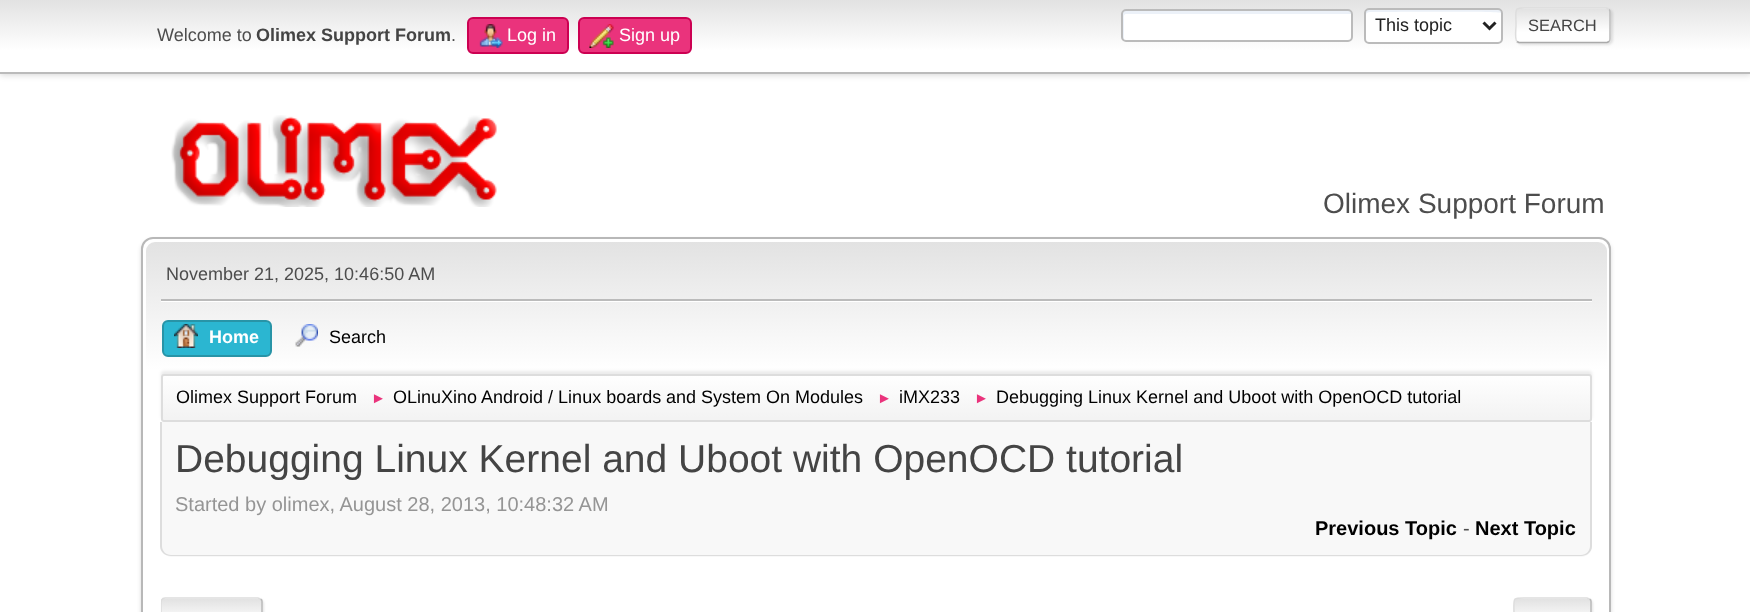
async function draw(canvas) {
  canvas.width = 1750;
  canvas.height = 612;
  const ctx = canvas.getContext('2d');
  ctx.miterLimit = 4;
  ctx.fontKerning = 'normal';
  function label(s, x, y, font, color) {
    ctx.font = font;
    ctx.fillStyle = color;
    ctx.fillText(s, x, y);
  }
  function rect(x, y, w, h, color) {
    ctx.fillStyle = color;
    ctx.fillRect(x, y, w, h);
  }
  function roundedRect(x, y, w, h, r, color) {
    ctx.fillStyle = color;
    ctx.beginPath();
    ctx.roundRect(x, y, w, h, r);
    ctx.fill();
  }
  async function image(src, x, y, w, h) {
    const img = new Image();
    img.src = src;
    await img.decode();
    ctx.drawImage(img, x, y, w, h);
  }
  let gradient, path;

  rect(0, 0, 1750, 612, '#fff');
  ctx.fillStyle = '#00000029';
  ctx.filter = 'blur(3px)';
  ctx.beginPath();
  ctx.rect(0, 2, 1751, 73);
  ctx.fill();
  ctx.filter = 'none';
  gradient = ctx.createLinearGradient(875, 0, 875, 72);
  gradient.addColorStop(0, '#e2e2e2');
  gradient.addColorStop(0.7, '#fff');
  ctx.fillStyle = gradient;
  ctx.fillRect(0, 0, 1750, 72);
  rect(0, 72, 1750, 2, '#bbb');
  label('Welcome to', 157, 41, '18px Liberation Sans', '#4d4d4d');
  label('Olimex Support Forum', 256, 41, 'bold 18px Liberation Sans', '#444');
  label('.', 451, 41, '18px Liberation Sans', '#4d4d4d');
  ctx.fillStyle = '#ea337c';
  ctx.beginPath();
  ctx.roundRect(468, 18, 100, 35, 5);
  ctx.fill();
  ctx.strokeStyle = '#cc0052';
  ctx.lineWidth = 2;
  ctx.stroke();
  await image('assets/img1.png', 479, 24, 24, 24);
  label('Log in', 507, 41, '18px Liberation Sans', '#fff');
  ctx.fillStyle = '#ea337c';
  ctx.beginPath();
  ctx.roundRect(579, 18, 112, 35, 5);
  ctx.fill();
  ctx.stroke();
  await image('assets/img2.png', 589, 24, 25, 24);
  label('Sign up', 619, 41, '18px Liberation Sans', '#fff');
  roundedRect(1121, 9, 232, 33, 5, '#fff');
  ctx.fillStyle = '#ecf1f8';
  path = new Path2D('M1126 14H1350H1352C1352 12 1351 11 1349 11H1125C1123 11 1122 12 1122 14V38C1122 39 1123 40 1124 41V20C1124 19 1123 14 1126 14Z');
  ctx.fill(path);
  ctx.beginPath();
  ctx.roundRect(1122, 10, 230, 31, 4);
  ctx.strokeStyle = '#bbb';
  ctx.stroke();
  roundedRect(1364, 8, 139, 36, 5, '#fff');
  ctx.fillStyle = '#ecf1f8';
  path = new Path2D('M1370 12C1383 12 1500 11 1502 13V12C1502 10 1501 9 1499 9H1368C1366 9 1365 10 1365 12V39C1365 40 1365 41 1366 41V15C1366 13 1368 12 1370 12Z');
  ctx.fill(path);
  ctx.beginPath();
  ctx.roundRect(1365, 9, 137, 34, 4);
  ctx.stroke();
  path = new Path2D('M1483.5 22.5L1489.5 28.5L1495.5 22.5');
  ctx.strokeStyle = '#222';
  ctx.lineWidth = 3;
  ctx.stroke(path);
  label('This topic', 1375, 31, '18px Liberation Sans', '#222');
  ctx.fillStyle = '#0000001a';
  ctx.filter = 'blur(1px)';
  ctx.beginPath();
  ctx.roundRect(1517, 9, 96, 36, 5);
  ctx.fill();
  ctx.filter = 'none';
  ctx.save();
  ctx.beginPath();
  ctx.roundRect(1515, 8, 96, 36, 5);
  ctx.clip();
  gradient = ctx.createLinearGradient(1563, -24, 1563, 9);
  gradient.addColorStop(0, '#e2e2e2');
  gradient.addColorStop(0.7, '#fff');
  ctx.fillStyle = gradient;
  ctx.fillRect(1515, 8, 96, 1);
  gradient = ctx.createLinearGradient(1563, 9, 1563, 42);
  gradient.addColorStop(0, '#e2e2e2');
  gradient.addColorStop(0.7, '#fff');
  ctx.fillStyle = gradient;
  ctx.fillRect(1515, 9, 96, 33);
  gradient = ctx.createLinearGradient(1563, 42, 1563, 75);
  gradient.addColorStop(0, '#e2e2e2');
  gradient.addColorStop(0.7, '#fff');
  ctx.fillStyle = gradient;
  ctx.fillRect(1515, 42, 96, 2);
  ctx.restore();
  path = new Path2D('M1609 9.5C1610 10 1610 11 1610 12V39C1610 40 1610 41 1609 41.5');
  ctx.strokeStyle = '#bbb';
  ctx.lineWidth = 1.5;
  ctx.stroke(path);
  path = new Path2D('M1609 41.5L1607 42.5H1519L1517 41.5');
  ctx.strokeStyle = '#aaa';
  ctx.stroke(path);
  path = new Path2D('M1517 41.5C1514.5 39.5 1516 28.5 1516 25.5C1516 5 1512.5 8 1534 8H1606.5L1609 9.5');
  ctx.strokeStyle = '#ddd';
  ctx.stroke(path);
  label('SEARCH', 1528, 31, '16.5px Liberation Sans', '#444');
  await image('assets/img3.png', 171, 115, 326, 92);
  label('Olimex Support Forum', 1323, 213, '28px Liberation Sans', '#4d4d4d');
  ctx.fillStyle = '#00000024';
  ctx.filter = 'blur(2px)';
  ctx.beginPath();
  ctx.roundRect(141, 240, 1470, 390, 12);
  ctx.fill();
  ctx.filter = 'none';
  ctx.fillStyle = '#fff';
  ctx.beginPath();
  ctx.roundRect(142, 238, 1468, 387, 11);
  ctx.fill();
  ctx.strokeStyle = '#b8b8b8';
  ctx.lineWidth = 2;
  ctx.stroke();
  gradient = ctx.createLinearGradient(876, 241, 876, 425);
  gradient.addColorStop(0, '#e2e2e2');
  gradient.addColorStop(0.7, '#fff');
  ctx.fillStyle = gradient;
  ctx.beginPath();
  ctx.roundRect(146, 242, 1461, 183, [9, 9, 0, 0]);
  ctx.fill();
  label('November 21, 2025, 10:46:50 AM', 166, 280, '18px Liberation Sans', '#4d4d4d');
  rect(161, 301, 1431, 1, '#fff');
  rect(161, 299, 1431, 2, '#bbb');
  ctx.fillStyle = '#2bb6d1';
  ctx.beginPath();
  ctx.roundRect(163, 321, 108, 35, 5);
  ctx.fill();
  ctx.strokeStyle = '#2894a7';
  ctx.stroke();
  await image('assets/img4.png', 174, 324, 24, 24);
  label('Home', 209, 343, 'bold 18px Liberation Sans', '#fff');
  await image('assets/img5.png', 295, 324, 23, 23);
  label('Search', 329, 343, '18px Liberation Sans', '#000');
  ctx.fillStyle = '#00000014';
  ctx.filter = 'blur(1.5px)';
  ctx.beginPath();
  ctx.roundRect(161, 371, 1431, 48, 3);
  ctx.fill();
  ctx.filter = 'none';
  ctx.save();
  ctx.beginPath();
  ctx.roundRect(161, 374, 1431, 48, 3);
  ctx.clip();
  gradient = ctx.createLinearGradient(876, 375, 876, 420);
  gradient.addColorStop(0, '#fff');
  gradient.addColorStop(0.95, '#f3f3f3');
  ctx.fillStyle = gradient;
  ctx.fillRect(161, 375, 1431, 45);
  ctx.restore();
  ctx.beginPath();
  ctx.roundRect(162, 375, 1429, 46, 2);
  ctx.strokeStyle = '#ddd';
  ctx.stroke();
  label('Olimex Support Forum', 176, 403, '18px Liberation Sans', '#000');
  label('►', 371, 403, '15px Liberation Sans', '#ea337c');
  label('OLinuXino Android / Linux boards', 393, 403, '18px Liberation Sans', '#000');
  label('and System On Modules', 666, 403, '18px Liberation Sans', '#000');
  label('►', 877, 403, '15px Liberation Sans', '#ea337c');
  label('iMX233', 899, 403, '18px Liberation Sans', '#000');
  label('►', 974, 403, '15px Liberation Sans', '#ea337c');
  label('Debugging Linux Kernel and Uboot with OpenOCD tutorial', 996, 403, '18px Liberation Sans', '#000');
  ctx.fillStyle = '#f8f8f8';
  ctx.beginPath();
  ctx.roundRect(161, 422, 1431, 135, [0, 0, 11, 11]);
  ctx.fill();
  ctx.fillStyle = '#ddd';
  path = new Path2D('M160 422H1592V546C1592 552 1587 556 1581 556H171C165 556 160 552 160 546ZM162 422H1590V546C1590 551 1586 555 1581 555H171C166 555 162 551 162 546Z');
  ctx.fill(path, 'evenodd');
  label('Debugging Linux Kernel and Uboot with OpenOCD tutorial', 175, 472, '39px Liberation Sans', '#444');
  label('Started by olimex, August 28, 2013, 10:48:32 AM', 175, 511, '20px Liberation Sans', '#959595');
  label('Previous Topic', 1315, 535, 'bold 20px Liberation Sans', '#000');
  label('-', 1463, 535, '20px Liberation Sans', '#4d4d4d');
  label('Next Topic', 1475, 535, 'bold 20px Liberation Sans', '#000');
  ctx.fillStyle = '#0000001a';
  ctx.filter = 'blur(1px)';
  ctx.beginPath();
  ctx.roundRect(162, 599, 102, 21, 5);
  ctx.fill();
  ctx.filter = 'none';
  roundedRect(161, 597, 102, 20, 5, '#fff');
  ctx.save();
  ctx.beginPath();
  ctx.roundRect(161, 597, 102, 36, 5);
  ctx.clip();
  gradient = ctx.createLinearGradient(212, 599, 212, 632);
  gradient.addColorStop(0, '#e2e2e2');
  gradient.addColorStop(0.7, '#fff');
  ctx.fillStyle = gradient;
  ctx.fillRect(161, 599, 102, 13);
  ctx.restore();
  path = new Path2D('M260.5 599C261.5 599.5 262 600.5 262 601.5V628.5C262 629.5 261.5 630.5 260.5 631');
  ctx.strokeStyle = '#bbb';
  ctx.lineWidth = 1.5;
  ctx.stroke(path);
  ctx.save();
  ctx.beginPath();
  ctx.rect(161, 579, 1431, 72);
  ctx.clip();
  path = new Path2D('M162.5 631C160 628.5 161 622.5 161 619.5V606C161 603 160.5 598 165 598H258L260.5 599');
  ctx.strokeStyle = '#ddd';
  ctx.stroke(path);
  ctx.restore();
  ctx.fillStyle = '#0000001a';
  ctx.filter = 'blur(1px)';
  ctx.beginPath();
  ctx.roundRect(1515, 599, 78, 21, 5);
  ctx.fill();
  ctx.filter = 'none';
  roundedRect(1514, 597, 78, 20, 5, '#fff');
  ctx.save();
  ctx.beginPath();
  ctx.roundRect(1514, 597, 78, 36, 5);
  ctx.clip();
  gradient = ctx.createLinearGradient(1553, 599, 1553, 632);
  gradient.addColorStop(0, '#e2e2e2');
  gradient.addColorStop(0.7, '#fff');
  ctx.fillStyle = gradient;
  ctx.fillRect(1514, 599, 78, 13);
  ctx.restore();
  path = new Path2D('M1589.5 599C1590.5 599.5 1591 600.5 1591 601.5V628.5C1591 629.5 1590.5 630.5 1589.5 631');
  ctx.stroke(path);
  path = new Path2D('M1515.5 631C1513 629 1514 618 1514 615C1514 596 1511 598 1529.5 598H1587L1589.5 599');
  ctx.strokeStyle = '#ddd';
  ctx.stroke(path);
}

draw(document.querySelector('canvas'));
